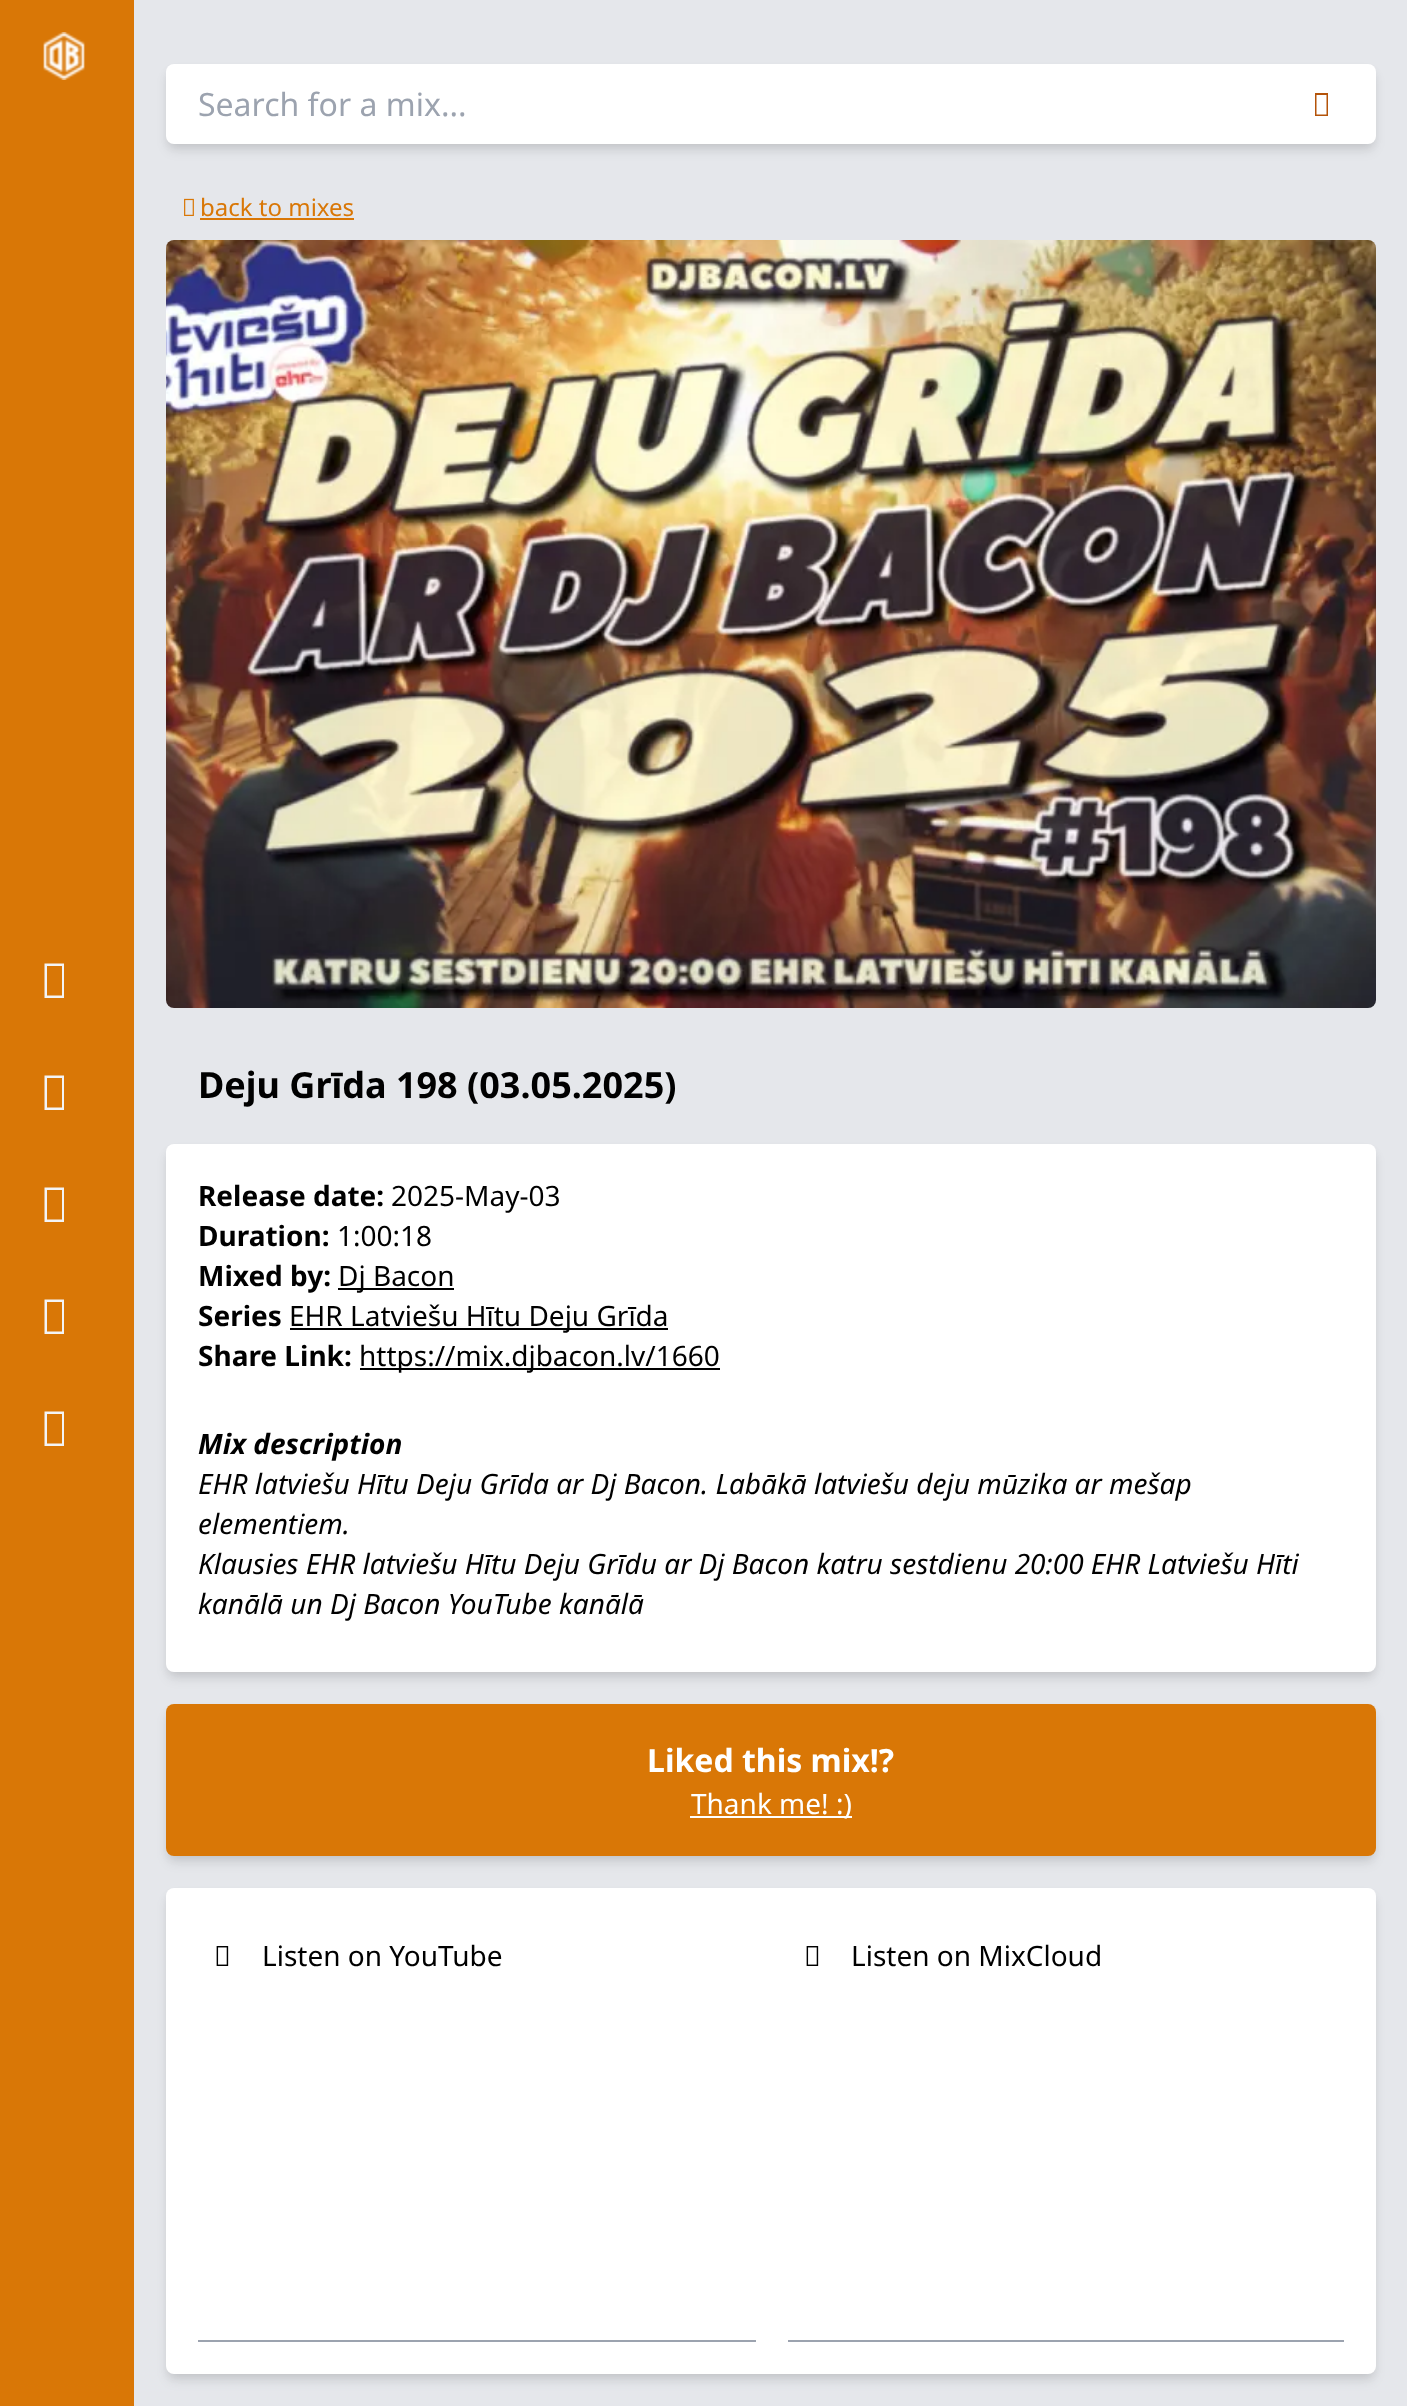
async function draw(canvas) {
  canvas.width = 1407;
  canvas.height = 2406;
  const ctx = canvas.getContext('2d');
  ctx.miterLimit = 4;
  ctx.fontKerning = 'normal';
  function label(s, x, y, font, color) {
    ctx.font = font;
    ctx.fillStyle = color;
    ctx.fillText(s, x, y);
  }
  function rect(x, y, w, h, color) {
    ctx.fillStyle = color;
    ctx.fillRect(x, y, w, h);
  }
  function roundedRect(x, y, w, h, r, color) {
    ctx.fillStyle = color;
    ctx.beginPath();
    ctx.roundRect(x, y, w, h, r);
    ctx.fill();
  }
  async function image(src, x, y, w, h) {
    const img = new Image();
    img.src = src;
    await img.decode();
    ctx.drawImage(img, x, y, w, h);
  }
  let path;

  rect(0, 0, 1407, 2406, '#e5e7eb');
  rect(0, 0, 134, 2406, '#d97706');
  await image('assets/img1.png', 43, 32, 42, 48);
  ctx.fillStyle = '#f3f4f6';
  path = new Path2D('M44.5 998V963.5H64V998ZM47 995.5H62V966H47Z');
  ctx.fill(path);
  path = new Path2D('M44.5 1110V1075.5H64V1110ZM47 1107.5H62V1078H47Z');
  ctx.fill(path);
  path = new Path2D('M44.5 1222V1187.5H64V1222ZM47 1219.5H62V1190H47Z');
  ctx.fill(path);
  path = new Path2D('M44.5 1334V1299.5H64V1334ZM47 1331.5H62V1302H47Z');
  ctx.fill(path);
  path = new Path2D('M44.5 1446V1411.5H64V1446ZM47 1443.5H62V1414H47Z');
  ctx.fill(path);
  ctx.fillStyle = '#0000000f';
  ctx.filter = 'blur(4px)';
  ctx.beginPath();
  ctx.roundRect(168, 70, 1206, 76, 6);
  ctx.fill();
  ctx.filter = 'none';
  ctx.fillStyle = '#0000001a';
  ctx.filter = 'blur(6px)';
  ctx.beginPath();
  ctx.roundRect(168, 74, 1206, 76, 6);
  ctx.fill();
  ctx.filter = 'none';
  ctx.fillStyle = '#fff';
  ctx.beginPath();
  ctx.roundRect(166, 64, 1114, 80, [8, 0, 0, 8]);
  ctx.fill();
  label('Search for a mix...', 198, 116, '32px Noto Sans', '#9ca3af');
  ctx.fillStyle = '#fff';
  ctx.beginPath();
  ctx.roundRect(1280, 64, 96, 80, [0, 8, 8, 0]);
  ctx.fill();
  ctx.fillStyle = '#b45309';
  path = new Path2D('M1315 116V93H1328V116ZM1316.5 114.5H1326.5V95H1316.5Z');
  ctx.fill(path);
  await image('assets/img2.png', 184, 198, 10, 18);
  label('back to mixes', 200, 216, '24px Noto Sans', '#d97706');
  rect(200, 218, 154, 2, '#d97706');
  await image('assets/img3.png', 166, 240, 1210, 768);
  label('Deju Grīda 198 (03.05.2025)', 198, 1098, 'bold 36px Noto Sans', '#000');
  ctx.fillStyle = '#0000000f';
  ctx.filter = 'blur(4px)';
  ctx.beginPath();
  ctx.roundRect(168, 1150, 1206, 524, 6);
  ctx.fill();
  ctx.filter = 'none';
  ctx.fillStyle = '#0000001a';
  ctx.filter = 'blur(6px)';
  ctx.beginPath();
  ctx.roundRect(168, 1154, 1206, 524, 6);
  ctx.fill();
  ctx.filter = 'none';
  roundedRect(166, 1144, 1210, 528, 8, '#fff');
  label('Release date:', 198, 1206, 'bold 28px Noto Sans', '#000');
  label('2025-May-03', 391, 1206, '28px Noto Sans', '#000');
  label('Duration:', 198, 1246, 'bold 28px Noto Sans', '#000');
  label('1:00:18', 337, 1246, '28px Noto Sans', '#000');
  label('Mixed by:', 198, 1286, 'bold 28px Noto Sans', '#000');
  rect(338, 1288, 116, 2, '#000');
  label('Dj Bacon', 338, 1286, '28px Noto Sans', '#000');
  label('Series', 198, 1326, 'bold 28px Noto Sans', '#000');
  rect(290, 1328, 378, 2, '#000');
  label('EHR Latviešu Hītu Deju Grīda', 289, 1326, '28px Noto Sans', '#000');
  label('Share Link:', 198, 1366, 'bold 28px Noto Sans', '#000');
  rect(360, 1368, 360, 2, '#000');
  label('https://mix.djbacon.lv/1660', 359, 1366, '28px Noto Sans', '#000');
  label('Mix description', 198, 1454, 'italic bold 28px Noto Sans', '#000');
  label('EHR latviešu Hītu Deju Grīda ar Dj Bacon. Labākā latviešu deju mūzika ar mešap', 198, 1494, 'italic 28px Noto Sans', '#000');
  label('elementiem.', 198, 1534, 'italic 28px Noto Sans', '#000');
  label('Klausies EHR latviešu Hītu Deju Grīdu ar Dj Bacon katru sestdienu 20:00 EHR Latviešu Hīti', 198, 1574, 'italic 28px Noto Sans', '#000');
  label('kanālā un Dj Bacon YouTube kanālā', 198, 1614, 'italic 28px Noto Sans', '#000');
  ctx.fillStyle = '#0000000f';
  ctx.filter = 'blur(4px)';
  ctx.beginPath();
  ctx.roundRect(168, 1710, 1206, 148, 6);
  ctx.fill();
  ctx.filter = 'none';
  ctx.fillStyle = '#0000001a';
  ctx.filter = 'blur(6px)';
  ctx.beginPath();
  ctx.roundRect(168, 1714, 1206, 148, 6);
  ctx.fill();
  ctx.filter = 'none';
  roundedRect(166, 1704, 1210, 152, 8, '#d97706');
  label('Liked this mix!?', 647, 1772, 'bold 32px Noto Sans', '#fff');
  rect(690, 1816, 162, 2, '#fff');
  label('Thank me! :)', 691, 1814, '28px Noto Sans', '#fff');
  ctx.fillStyle = '#0000000f';
  ctx.filter = 'blur(4px)';
  ctx.beginPath();
  ctx.roundRect(168, 1894, 1206, 482, 6);
  ctx.fill();
  ctx.filter = 'none';
  ctx.fillStyle = '#0000001a';
  ctx.filter = 'blur(6px)';
  ctx.beginPath();
  ctx.roundRect(168, 1898, 1206, 482, 6);
  ctx.fill();
  ctx.filter = 'none';
  roundedRect(166, 1888, 1210, 486, 8, '#fff');
  rect(198, 2340, 558, 2, '#9ca3af');
  await image('assets/img4.png', 216, 1946, 13, 20);
  label('Listen on YouTube', 262, 1966, '28px Noto Sans', '#000');
  rect(788, 2340, 556, 2, '#9ca3af');
  await image('assets/img4.png', 806, 1946, 13, 20);
  label('Listen on MixCloud', 851, 1966, '28px Noto Sans', '#000');
}

draw(document.querySelector('canvas'));
